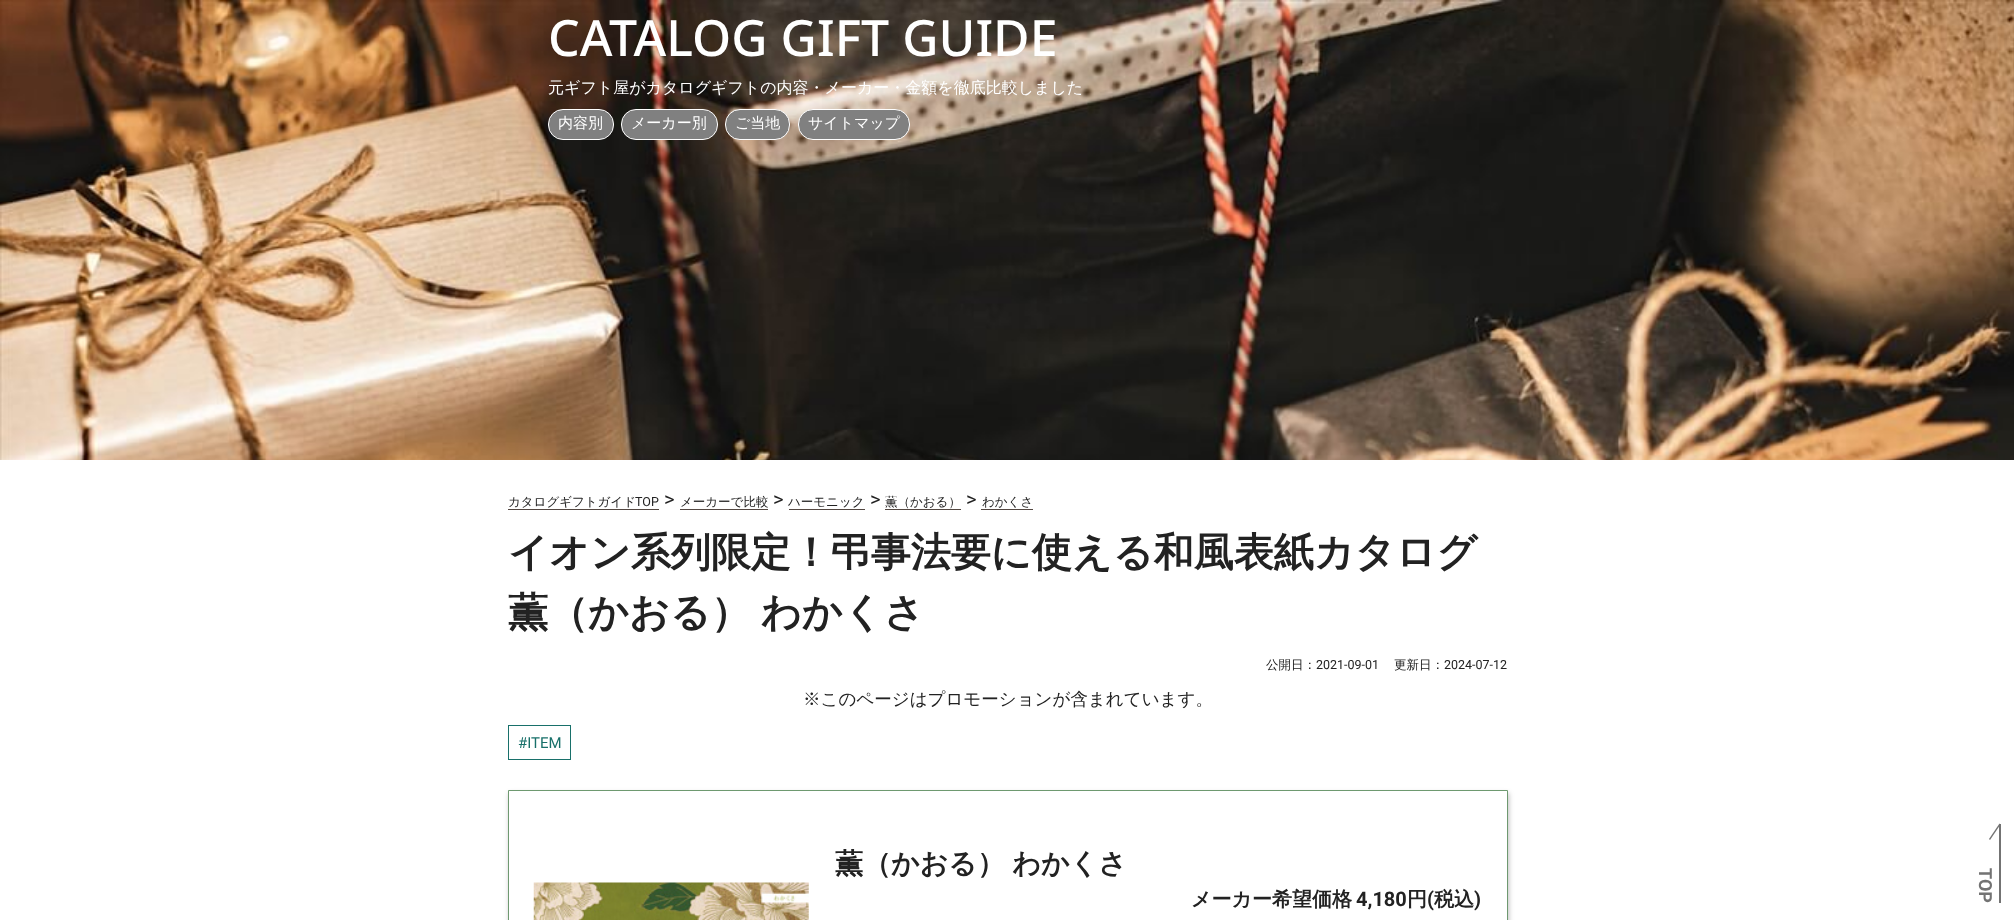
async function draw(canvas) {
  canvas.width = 2014;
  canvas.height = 920;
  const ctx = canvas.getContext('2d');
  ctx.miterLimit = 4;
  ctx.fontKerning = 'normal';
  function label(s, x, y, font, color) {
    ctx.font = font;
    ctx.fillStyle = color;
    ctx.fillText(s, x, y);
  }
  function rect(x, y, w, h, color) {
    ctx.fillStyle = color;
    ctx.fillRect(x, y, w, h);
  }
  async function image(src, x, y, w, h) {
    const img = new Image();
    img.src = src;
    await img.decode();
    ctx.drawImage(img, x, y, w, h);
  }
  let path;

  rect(0, 0, 2014, 920, '#fff');
  await image('assets/img1.png', 0, 0, 2014, 460);
  label('CATALOG GIFT GUIDE', 548, 56, '500 50px Noto Sans', '#fff');
  label('元ギフト屋がカタログギフトの内容・メーカー・金額を徹底比較しました', 548, 93, '500 16px WenQuanYi Zen Hei', '#fff');
  ctx.fillStyle = '#808080';
  ctx.beginPath();
  ctx.roundRect(548.5, 109.5, 65, 30, 14.5);
  ctx.fill();
  ctx.strokeStyle = '#fff';
  ctx.stroke();
  label('内容別', 558, 128, '500 15px WenQuanYi Zen Hei', '#fff');
  ctx.fillStyle = '#808080';
  ctx.beginPath();
  ctx.roundRect(621.5, 109.5, 96, 30, 14.5);
  ctx.fill();
  ctx.stroke();
  label('メーカー別', 631, 128, '500 15px WenQuanYi Zen Hei', '#fff');
  ctx.fillStyle = '#808080';
  ctx.beginPath();
  ctx.roundRect(725.5, 109.5, 64, 30, 14.5);
  ctx.fill();
  ctx.stroke();
  label('ご当地', 735, 128, '500 15px WenQuanYi Zen Hei', '#fff');
  ctx.fillStyle = '#808080';
  ctx.beginPath();
  ctx.roundRect(798.5, 109.5, 111, 30, 14.5);
  ctx.fill();
  ctx.stroke();
  label('サイトマップ', 808, 128, '500 15px WenQuanYi Zen Hei', '#fff');
  label('カタログギフトガイド', 508, 506, '500 12.5px WenQuanYi Zen Hei', '#222');
  label('TOP', 635, 506, '12.5px Roboto', '#222');
  rect(508, 509, 151, 1, '#534741');
  label('>', 664, 506, '20px Roboto', '#222');
  label('メーカーで比較', 680, 506, '500 12.5px WenQuanYi Zen Hei', '#222');
  rect(680, 509, 88, 1, '#534741');
  label('>', 773, 506, '20px Roboto', '#222');
  label('ハーモニック', 788, 506, '500 12.5px WenQuanYi Zen Hei', '#222');
  rect(789, 509, 76, 1, '#534741');
  label('>', 870, 506, '20px Roboto', '#222');
  label('薫（かおる）', 885, 506, '500 12.5px WenQuanYi Zen Hei', '#222');
  rect(885, 509, 76, 1, '#534741');
  label('>', 966, 506, '20px Roboto', '#222');
  label('わかくさ', 982, 506, '500 12.5px WenQuanYi Zen Hei', '#222');
  rect(981, 509, 52, 1, '#534741');
  label('イオン系列限定！弔事法要に使える和風表紙カタログ', 508, 566, 'bold 40px WenQuanYi Zen Hei', '#222');
  ctx.wordSpacing = '-2px';
  label('薫（かおる） わかくさ', 508, 626, 'bold 40px WenQuanYi Zen Hei', '#222');
  ctx.wordSpacing = '0px';
  label('公開日：', 1266, 669, '500 12.5px WenQuanYi Zen Hei', '#222');
  label('2021-09-01', 1316, 669, '12.5px Roboto', '#222');
  label('更新日：', 1394, 669, '500 12.5px WenQuanYi Zen Hei', '#222');
  label('2024-07-12', 1444, 669, '12.5px Roboto', '#222');
  label('※このページはプロモーションが含まれています。', 803, 705, '500 17.5px WenQuanYi Zen Hei', '#222');
  ctx.strokeStyle = '#18706a';
  ctx.strokeRect(508.5, 725.5, 62, 34);
  label('#ITEM', 518, 748, '15px Roboto', '#18706a');
  ctx.fillStyle = '#00000040';
  ctx.filter = 'blur(2.5px)';
  ctx.beginPath();
  ctx.rect(509, 793, 1000, 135);
  ctx.fill();
  ctx.filter = 'none';
  ctx.fillStyle = '#fff';
  ctx.beginPath();
  ctx.rect(508.5, 790.5, 999, 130);
  ctx.fill();
  ctx.strokeStyle = '#6e9970';
  ctx.stroke();
  await image('assets/img2.png', 533, 882, 276, 38);
  ctx.wordSpacing = '-1px';
  label('薫（かおる） わかくさ', 835, 873, 'bold 28px WenQuanYi Zen Hei', '#222');
  ctx.wordSpacing = '0px';
  label('メーカー希望価格', 1191, 906, 'bold 20px WenQuanYi Zen Hei', '#222');
  label('4,180', 1356, 906, 'bold 20px Roboto', '#222');
  label('円', 1407, 906, 'bold 20px WenQuanYi Zen Hei', '#222');
  label('(', 1427, 906, 'bold 20px Roboto', '#222');
  label('税込', 1434, 906, 'bold 20px WenQuanYi Zen Hei', '#222');
  label(')', 1474, 906, 'bold 20px Roboto', '#222');
  rect(1999, 824, 2, 79, '#737373');
  path = new Path2D('M2000.5 824.5L1990 840L1989 839L1999.5 823.5Z');
  ctx.fill(path);
  ctx.font = 'bold 18px Roboto';
  ctx.save();
  ctx.translate(1979, 868);
  ctx.rotate(90 * Math.PI / 180);
  ctx.fillText('TOP', 0, 0);
  ctx.restore();
}

draw(document.querySelector('canvas'));
